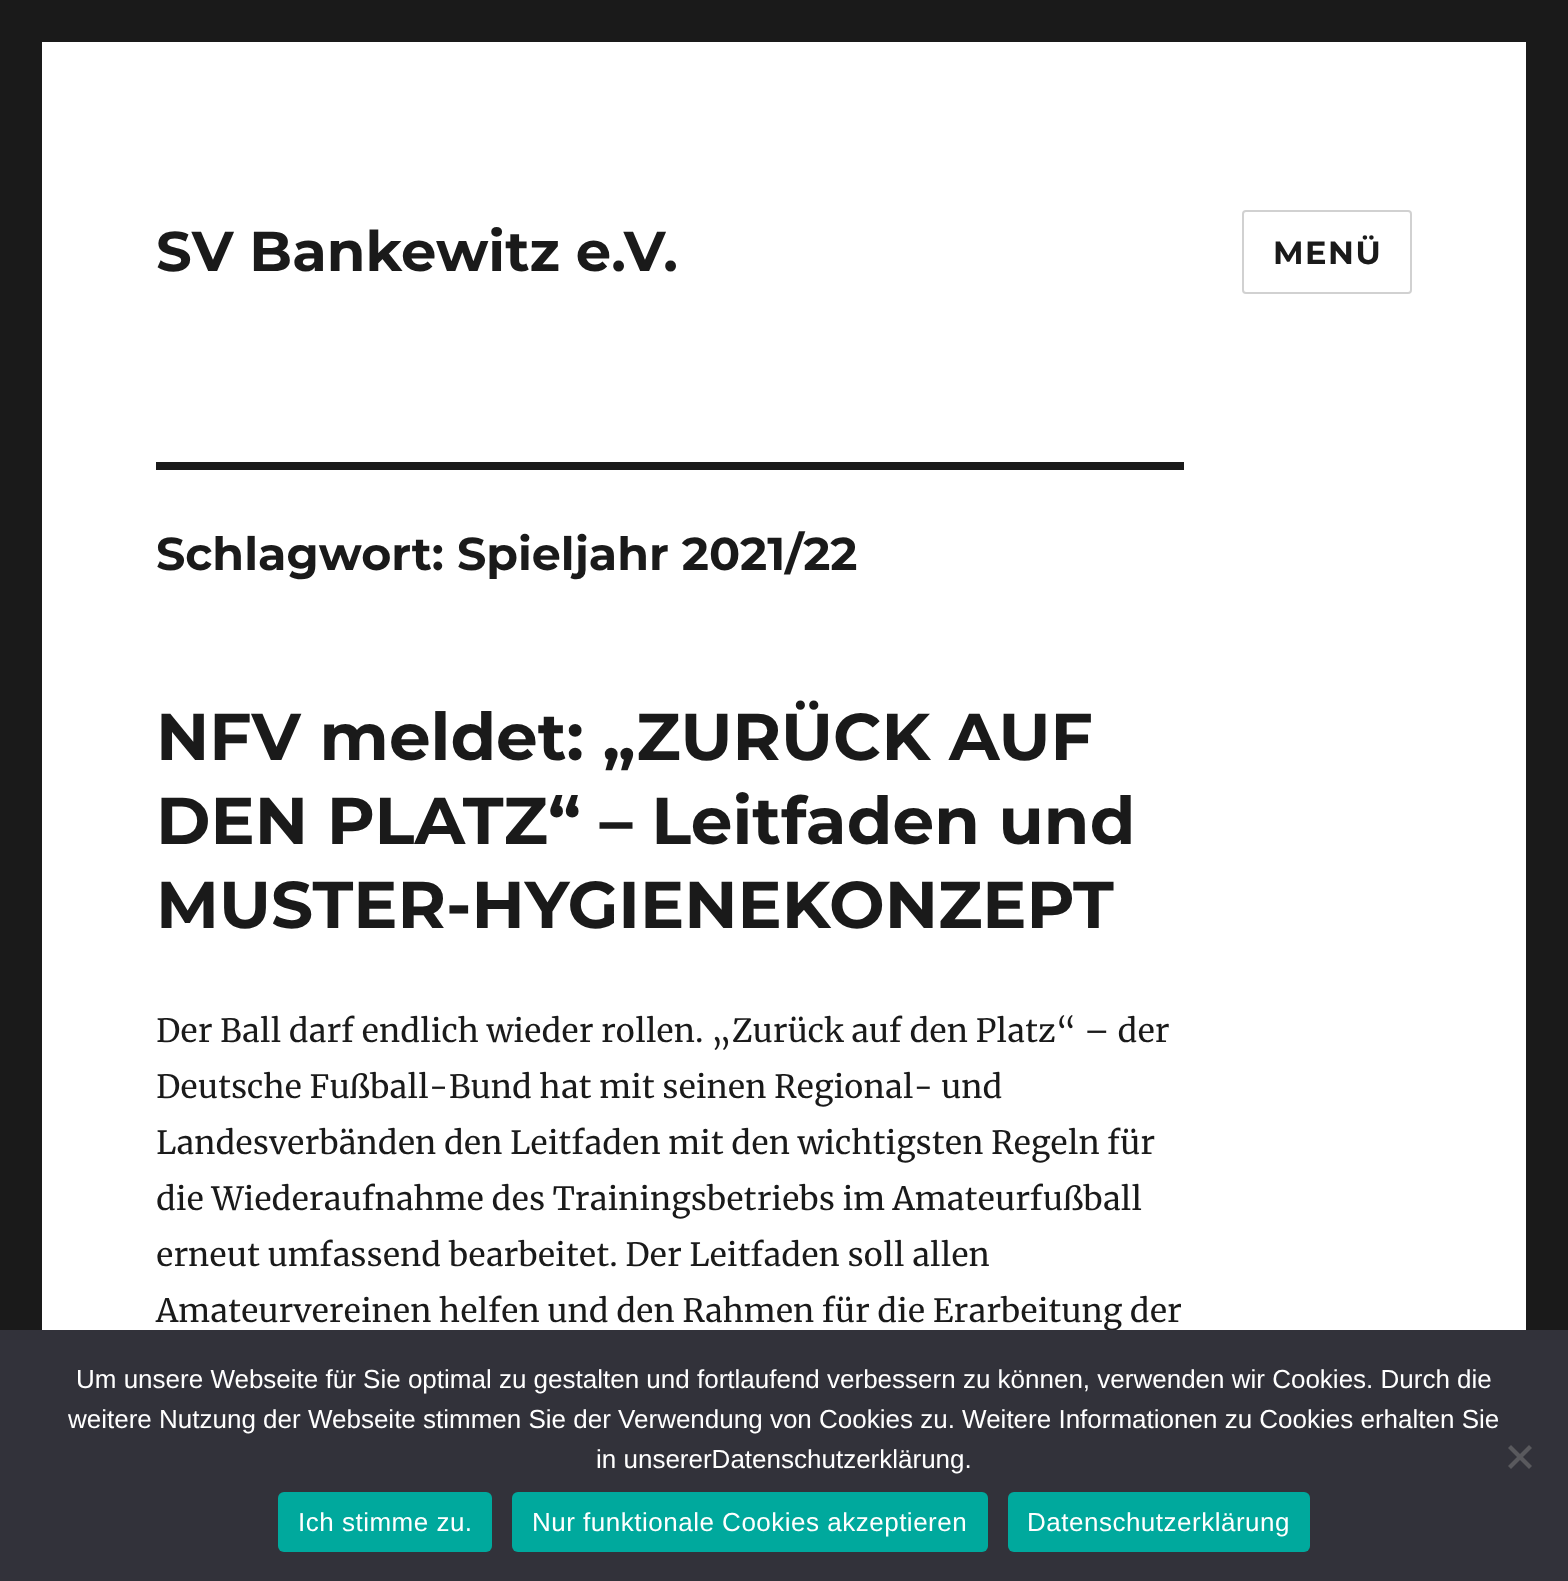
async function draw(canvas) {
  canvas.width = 1568;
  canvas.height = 1581;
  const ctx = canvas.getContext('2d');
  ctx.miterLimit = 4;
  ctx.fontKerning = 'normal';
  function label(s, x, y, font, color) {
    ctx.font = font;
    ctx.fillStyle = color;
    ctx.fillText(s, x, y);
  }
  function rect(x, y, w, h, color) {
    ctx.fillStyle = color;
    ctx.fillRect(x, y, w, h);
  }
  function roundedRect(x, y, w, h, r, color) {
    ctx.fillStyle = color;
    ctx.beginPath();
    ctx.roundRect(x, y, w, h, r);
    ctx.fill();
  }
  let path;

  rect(0, 0, 1568, 1581, '#1a1a1a');
  rect(42, 42, 1484, 1288, '#fff');
  label('SV Bankewitz e.V.', 156, 271, '100 56px Montserrat', '#1a1a1a');
  ctx.beginPath();
  ctx.roundRect(1243, 211, 168, 82, 3);
  ctx.strokeStyle = '#d1d1d1';
  ctx.lineWidth = 2;
  ctx.stroke();
  ctx.letterSpacing = '1.5px';
  label('MENÜ', 1273, 264, '100 32px Montserrat', '#1a1a1a');
  rect(156, 462, 1028, 8, '#1a1a1a');
  ctx.letterSpacing = '0px';
  label('Schlagwort: Spieljahr 2021/22', 156, 570, '100 46px Montserrat', '#1a1a1a');
  label('NFV meldet: „ZURÜCK AUF', 156, 760, '100 66px Montserrat', '#1a1a1a');
  label('DEN PLATZ“ – Leitfaden und', 156, 844, '100 66px Montserrat', '#1a1a1a');
  label('MUSTER-HYGIENEKONZEPT', 156, 928, '100 66px Montserrat', '#1a1a1a');
  label('Der Ball darf endlich wieder rollen. „Zurück auf den Platz“ – der', 156, 1042, '32px Merriweather', '#1a1a1a');
  label('Deutsche Fußball-Bund hat mit seinen Regional- und', 156, 1098, '32px Merriweather', '#1a1a1a');
  label('Landesverbänden den Leitfaden mit den wichtigsten Regeln für', 156, 1154, '32px Merriweather', '#1a1a1a');
  label('die Wiederaufnahme des Trainingsbetriebs im Amateurfußball', 156, 1210, '32px Merriweather', '#1a1a1a');
  label('erneut umfassend bearbeitet. Der Leitfaden soll allen', 156, 1266, '32px Merriweather', '#1a1a1a');
  label('Amateurvereinen helfen und den Rahmen für die Erarbeitung der', 156, 1322, '32px Merriweather', '#1a1a1a');
  rect(0, 1330, 1568, 251, '#32323a');
  label('Um unsere Webseite für Sie optimal zu gestalten und fortlaufend verbessern zu können, verwenden wir Cookies. Durch die', 76, 1388, '26px Liberation Sans', '#fff');
  label('weitere Nutzung der Webseite stimmen Sie der Verwendung von Cookies zu. Weitere Informationen zu Cookies erhalten Sie', 68, 1428, '26px Liberation Sans', '#fff');
  label('in unsererDatenschutzerklärung.', 596, 1468, '26px Liberation Sans', '#fff');
  ctx.fillStyle = '#59595d';
  path = new Path2D('M1529 1445L1532 1448L1511 1469L1508 1466Z');
  ctx.fill(path);
  path = new Path2D('M1508 1448L1511 1445L1532 1466L1529 1469Z');
  ctx.fill(path);
  roundedRect(278, 1492, 214, 60, 6, '#00a99d');
  ctx.letterSpacing = '0.5px';
  label('Ich stimme zu.', 298, 1531, '26px Liberation Sans', '#fff');
  roundedRect(512, 1492, 476, 60, 6, '#00a99d');
  label('Nur funktionale Cookies akzeptieren', 532, 1531, '26px Liberation Sans', '#fff');
  roundedRect(1008, 1492, 302, 60, 6, '#00a99d');
  label('Datenschutzerklärung', 1027, 1531, '26px Liberation Sans', '#fff');
}

draw(document.querySelector('canvas'));
